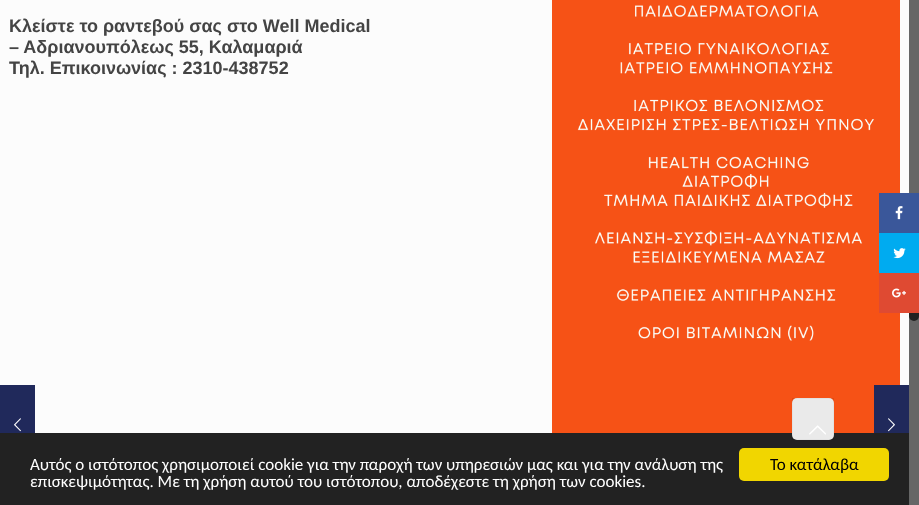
async function draw(canvas) {
  canvas.width = 919;
  canvas.height = 505;
  const ctx = canvas.getContext('2d');
  ctx.miterLimit = 4;
  ctx.fontKerning = 'normal';
  function label(s, x, y, font, color) {
    ctx.font = font;
    ctx.fillStyle = color;
    ctx.fillText(s, x, y);
  }
  function rect(x, y, w, h, color) {
    ctx.fillStyle = color;
    ctx.fillRect(x, y, w, h);
  }
  function roundedRect(x, y, w, h, r, color) {
    ctx.fillStyle = color;
    ctx.beginPath();
    ctx.roundRect(x, y, w, h, r);
    ctx.fill();
  }
  async function image(src, x, y, w, h) {
    const img = new Image();
    img.src = src;
    await img.decode();
    ctx.drawImage(img, x, y, w, h);
  }

  rect(0, 0, 919, 505, '#fcfcfc');
  label('Κλείστε το ραντεβού σας στο Well Medical', 9, 32, 'bold 18px Liberation Sans', '#444');
  label('– Αδριανουπόλεως 55, Καλαμαριά', 9, 53, 'bold 18px Liberation Sans', '#444');
  label('Τηλ. Επικοινωνίας : 2310-438752', 9, 74, 'bold 18px Liberation Sans', '#444');
  await image('assets/img1.png', 552, 0, 348, 433);
  rect(909, 0, 10, 505, '#666');
  roundedRect(909, 236, 10, 85, 5, '#222');
  rect(879, 193, 40, 40, '#3a579a');
  await image('assets/img2.png', 895, 206, 8, 14);
  rect(879, 233, 40, 40, '#00abf0');
  await image('assets/img3.png', 893, 248, 13, 11);
  rect(879, 273, 40, 40, '#df4a32');
  await image('assets/img4.png', 892, 288, 14, 10);
  rect(0, 385, 35, 48, '#20295b');
  await image('assets/img5.png', 14, 418, 7, 14);
  rect(0, 433, 909, 72, '#222');
  roundedRect(792, 398, 42, 42, 5, '#f7f7f7');
  ctx.strokeStyle = '#00000008';
  ctx.strokeRect(792.5, 398.5, 41, 41);
  rect(792, 398, 42, 42, '#0000000d');
  await image('assets/img6.png', 809, 425, 17, 10);
  rect(874, 385, 35, 48, '#20295b');
  await image('assets/img7.png', 888, 418, 7, 14);
  label('Αυτός ο ιστότοπος χρησιμοποιεί cookie για την παροχή των υπηρεσιών μας και για την ανάλυση της', 30, 470, '17px Carlito', '#fff');
  label('επισκεψιμότητας. Με τη χρήση αυτού του ιστότοπου, αποδέχεστε τη χρήση των cookies.', 30, 487, '17px Carlito', '#fff');
  roundedRect(739, 448, 150, 33, 5, '#f1d600');
  label('Το κατάλαβα', 770, 470, '17px Carlito', '#000');
}

draw(document.querySelector('canvas'));
